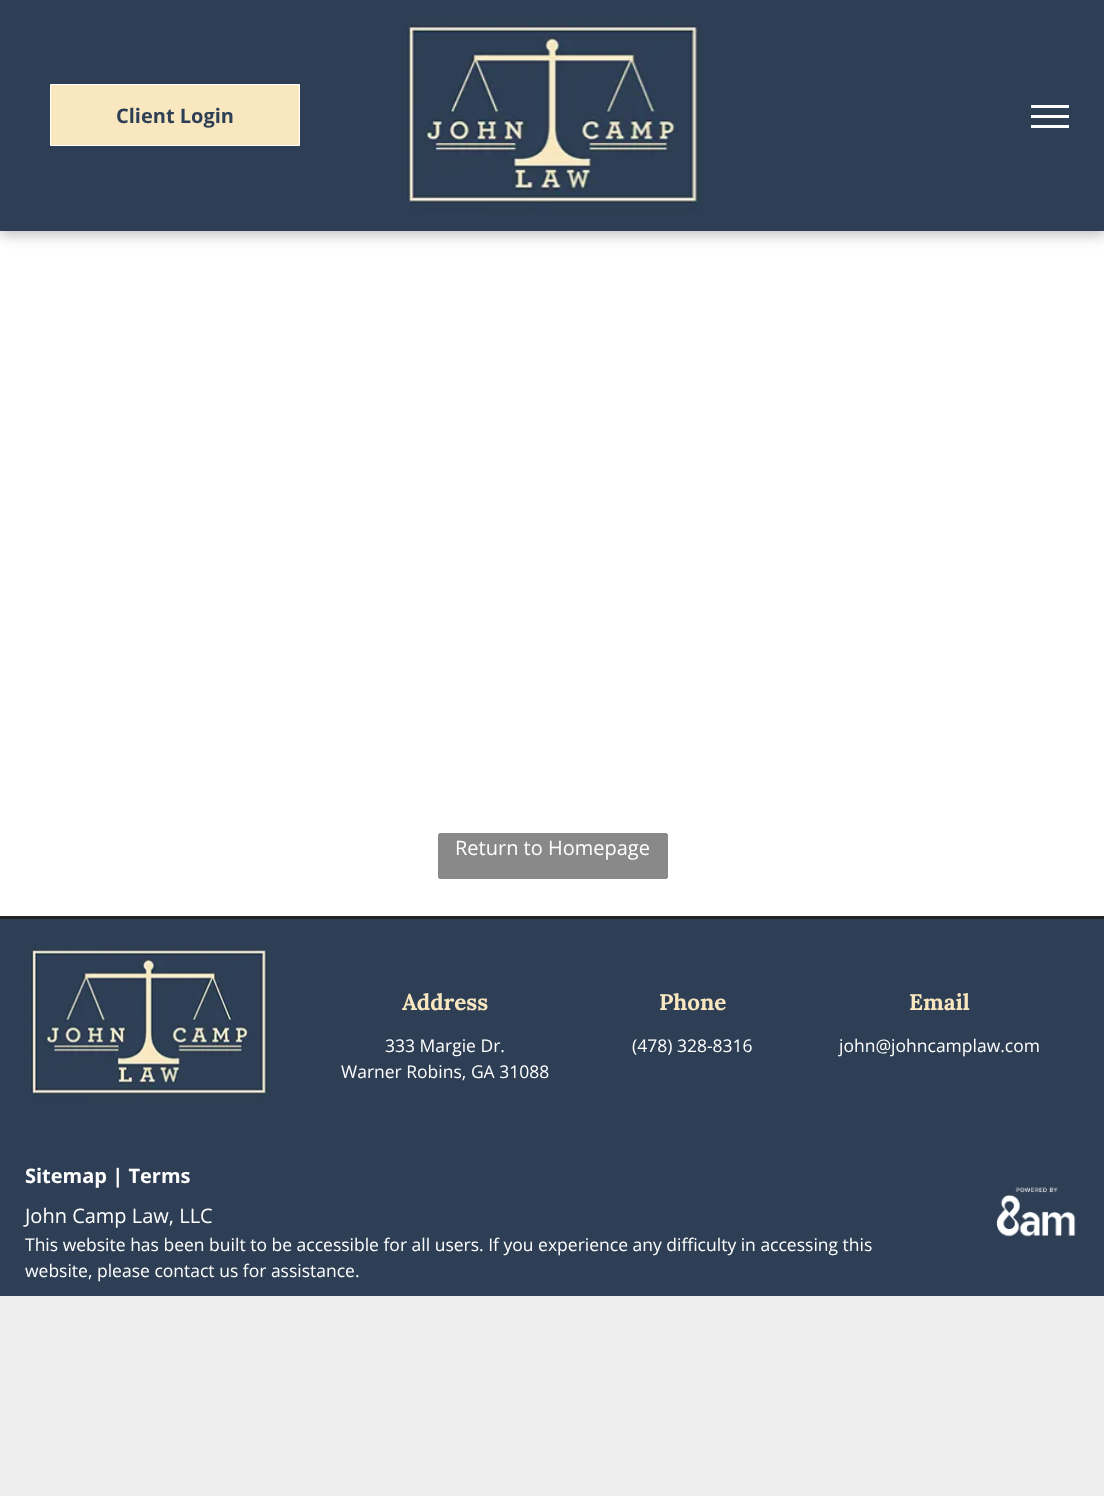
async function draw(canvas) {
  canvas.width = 1104;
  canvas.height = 1496;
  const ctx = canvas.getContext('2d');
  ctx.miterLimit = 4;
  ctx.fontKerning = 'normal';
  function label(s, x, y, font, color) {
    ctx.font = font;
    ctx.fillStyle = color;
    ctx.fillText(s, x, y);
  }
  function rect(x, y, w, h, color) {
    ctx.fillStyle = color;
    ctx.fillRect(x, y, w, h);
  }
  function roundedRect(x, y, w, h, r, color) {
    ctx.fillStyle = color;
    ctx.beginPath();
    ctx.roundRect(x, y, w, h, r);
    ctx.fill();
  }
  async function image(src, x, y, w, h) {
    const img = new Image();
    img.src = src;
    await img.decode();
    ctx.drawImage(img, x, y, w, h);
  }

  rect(0, 0, 1104, 1496, '#eee');
  rect(0, 231, 1104, 685, '#fff');
  ctx.fillStyle = '#00000040';
  ctx.filter = 'blur(7px)';
  ctx.beginPath();
  ctx.rect(0, 4, 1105, 231);
  ctx.fill();
  ctx.filter = 'none';
  rect(0, 0, 1104, 231, '#2e3f55');
  ctx.fillStyle = '#f9e7bf';
  ctx.beginPath();
  ctx.rect(50.5, 84.5, 249, 61);
  ctx.fill();
  ctx.strokeStyle = '#fff';
  ctx.stroke();
  label('Client Login', 116, 123, 'bold 20px Open Sans', '#2e3f55');
  await image('assets/img1.png', 407, 22, 295, 189);
  rect(1031, 105, 38, 3, '#fff');
  rect(1031, 115, 38, 3, '#fff');
  rect(1031, 125, 38, 3, '#fff');
  roundedRect(438, 833, 230, 46, 2.5, '#898989');
  label('Return to Homepage', 455, 855, '20px Open Sans', '#fff');
  rect(0, 916, 1104, 3, '#222');
  rect(0, 919, 1104, 377, '#2e3f55');
  await image('assets/img2.png', 29, 946, 241, 155);
  label('Address', 402, 1010, 'bold 22.5px Lora', '#f9e7bf');
  label('333 Margie Dr.', 385, 1052, '17.5px Open Sans', '#fff');
  label('Warner Robins, GA 31088', 341, 1078, '17.5px Open Sans', '#fff');
  label('Phone', 659, 1010, 'bold 22.5px Lora', '#f9e7bf');
  label('(478) 328-8316', 632, 1052, '17.5px Open Sans', '#fff');
  label('Email', 909, 1010, 'bold 22.5px Lora', '#f9e7bf');
  label('john@johncamplaw.com', 839, 1052, '17.5px Open Sans', '#fff');
  label('Sitemap | Terms', 25, 1183, 'bold 20px Open Sans', '#fff');
  label('John Camp Law, LLC', 25, 1223, '20px Open Sans', '#fff');
  label('This website has been built to be accessible for all users. If you experience any difficulty in accessing this', 25, 1251, '17.5px Open Sans', '#fff');
  label('website, please contact us for assistance.', 25, 1277, '17.5px Open Sans', '#fff');
  await image('assets/img3.png', 996, 1187, 80, 50);
}

draw(document.querySelector('canvas'));
